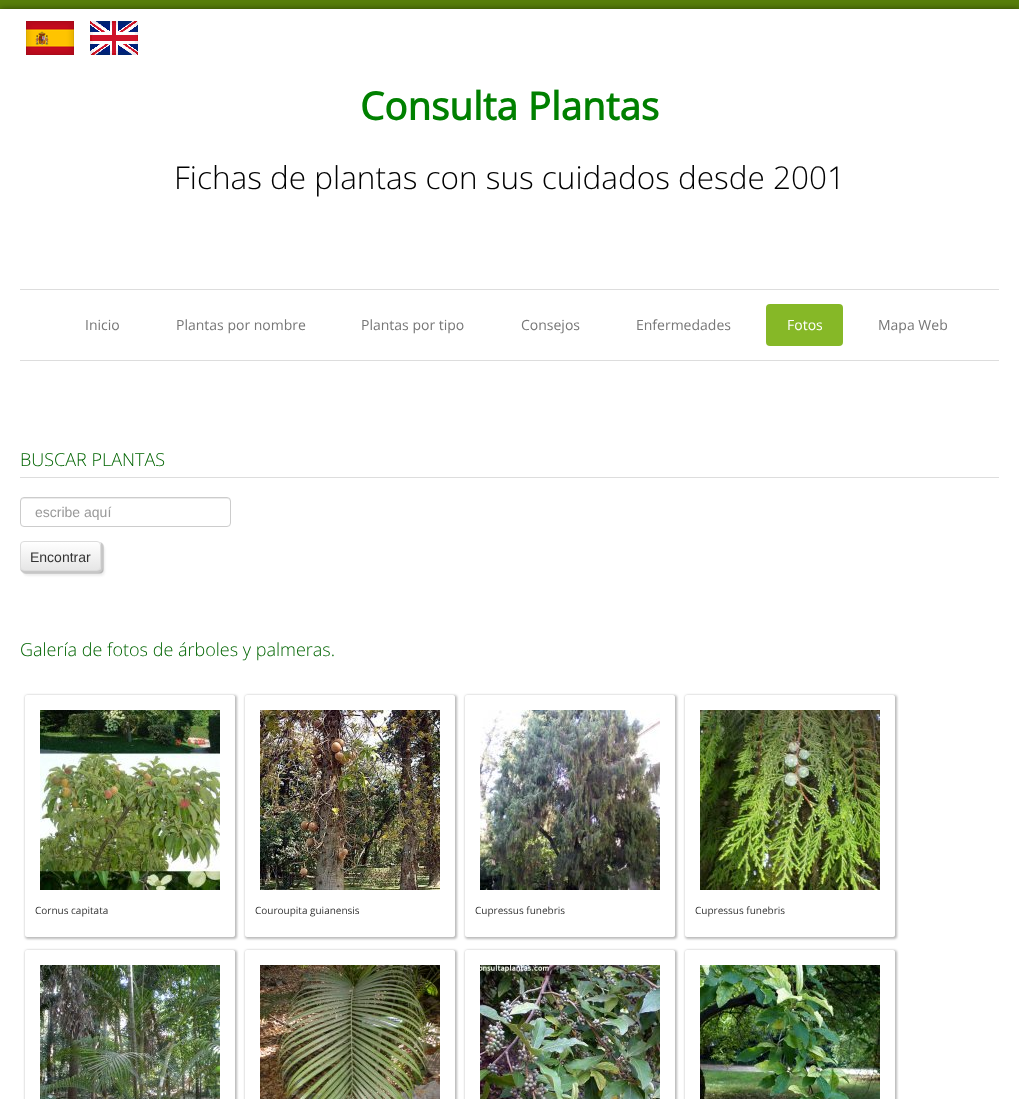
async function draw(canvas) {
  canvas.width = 1019;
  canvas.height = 1099;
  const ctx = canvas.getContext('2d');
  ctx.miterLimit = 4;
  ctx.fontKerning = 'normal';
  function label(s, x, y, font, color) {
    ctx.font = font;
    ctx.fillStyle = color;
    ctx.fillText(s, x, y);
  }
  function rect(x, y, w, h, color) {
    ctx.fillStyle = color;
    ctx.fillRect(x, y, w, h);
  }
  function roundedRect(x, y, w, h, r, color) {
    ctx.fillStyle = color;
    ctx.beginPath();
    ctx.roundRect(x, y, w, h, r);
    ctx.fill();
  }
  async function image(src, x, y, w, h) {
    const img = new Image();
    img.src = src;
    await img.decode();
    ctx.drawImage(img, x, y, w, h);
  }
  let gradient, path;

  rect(0, 0, 1019, 1099, '#577e0a');
  ctx.fillStyle = '#00000078';
  ctx.filter = 'blur(3px)';
  ctx.beginPath();
  ctx.rect(0, 9, 1019, 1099);
  ctx.fill();
  ctx.filter = 'none';
  rect(0, 9, 1019, 1090, '#fff');
  await image('assets/img1.png', 26, 21, 48, 34);
  await image('assets/img2.png', 90, 21, 48, 34);
  label('Consulta Plantas', 360, 120, 'bold 38.5px Open Sans', '#008000');
  label('Fichas de plantas con sus cuidados desde 2001', 174, 189, '300 31.5px Open Sans', '#000');
  rect(20, 289, 979, 1, '#ddd');
  rect(20, 360, 979, 1, '#ddd');
  label('Inicio', 85, 330, '14px Open Sans', '#777');
  label('Plantas por nombre', 176, 330, '14px Open Sans', '#777');
  label('Plantas por tipo', 361, 330, '14px Open Sans', '#777');
  label('Consejos', 521, 330, '14px Open Sans', '#777');
  label('Enfermedades', 636, 330, '14px Open Sans', '#777');
  roundedRect(766, 304, 77, 42, 4, '#86b827');
  label('Fotos', 787, 330, '14px Open Sans', '#fff');
  label('Mapa Web', 878, 330, '14px Open Sans', '#777');
  rect(20, 477, 979, 1, '#ddd');
  label('BUSCAR PLANTAS', 20, 466, '300 18px Open Sans', '#006400');
  ctx.fillStyle = '#ececec';
  path = new Path2D('M24 499H227C229 499 230 500 230 502V501C230 499 229 498 227 498H24C22 498 21 499 21 501V502C21 500 22 499 24 499Z');
  ctx.fill(path);
  ctx.beginPath();
  ctx.roundRect(20.5, 497.5, 210, 29, 3.5);
  ctx.strokeStyle = '#ccc';
  ctx.stroke();
  label('escribe aquí', 35, 517, '14px Liberation Sans', '#999');
  ctx.fillStyle = '#dbdbdb4d';
  ctx.filter = 'blur(1px)';
  ctx.beginPath();
  ctx.roundRect(24, 546, 81, 30, 4);
  ctx.fill();
  ctx.filter = 'none';
  ctx.fillStyle = '#d5d5d54d';
  ctx.filter = 'blur(1px)';
  ctx.beginPath();
  ctx.roundRect(23, 545, 81, 30, 4);
  ctx.fill();
  ctx.filter = 'none';
  ctx.fillStyle = '#50505033';
  ctx.filter = 'blur(0.5px)';
  ctx.beginPath();
  ctx.roundRect(22, 544, 81, 30, 4);
  ctx.fill();
  ctx.filter = 'none';
  ctx.filter = 'blur(0.5px)';
  ctx.beginPath();
  ctx.roundRect(23, 543, 81, 30, 4);
  ctx.fill();
  ctx.filter = 'none';
  ctx.fillStyle = '#c8c8c8e6';
  ctx.filter = 'blur(0.5px)';
  ctx.beginPath();
  ctx.roundRect(21, 543, 81, 30, 4);
  ctx.fill();
  ctx.filter = 'none';
  ctx.filter = 'blur(0.5px)';
  ctx.beginPath();
  ctx.roundRect(22, 542, 81, 30, 4);
  ctx.fill();
  ctx.filter = 'none';
  ctx.filter = 'blur(0.5px)';
  ctx.beginPath();
  ctx.roundRect(20, 542, 81, 30, 4);
  ctx.fill();
  ctx.filter = 'none';
  ctx.save();
  ctx.beginPath();
  ctx.roundRect(20, 541, 81, 30, 4);
  ctx.clip();
  gradient = ctx.createLinearGradient(61, 542, 61, 570);
  gradient.addColorStop(0, '#fff');
  gradient.addColorStop(1, '#e6e6e6');
  ctx.fillStyle = gradient;
  ctx.fillRect(20, 542, 81, 28);
  ctx.restore();
  ctx.beginPath();
  ctx.roundRect(20.5, 541.5, 80, 29, 3.5);
  ctx.strokeStyle = '#ddd';
  ctx.stroke();
  label('Encontrar', 30, 562, '14px Liberation Sans', '#333');
  label('Galería de fotos de árboles y palmeras.', 20, 656, '300 18px Open Sans', '#006400');
  ctx.save();
  path = new Path2D('M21 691H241V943H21ZM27 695H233C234 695 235 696 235 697V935C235 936 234 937 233 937H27C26 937 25 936 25 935V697C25 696 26 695 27 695Z');
  ctx.clip(path, 'evenodd');
  ctx.fillStyle = '#78787880';
  ctx.filter = 'blur(1px)';
  ctx.beginPath();
  ctx.roundRect(25, 695, 212, 244, 3);
  ctx.fill();
  ctx.filter = 'none';
  ctx.restore();
  await image('assets/img3.png', 40, 710, 180, 180);
  label('Cornus capitata', 35, 914, '10px Open Sans', '#333');
  ctx.save();
  path = new Path2D('M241 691H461V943H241ZM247 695H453C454 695 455 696 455 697V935C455 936 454 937 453 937H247C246 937 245 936 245 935V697C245 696 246 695 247 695Z');
  ctx.clip(path, 'evenodd');
  ctx.fillStyle = '#78787880';
  ctx.filter = 'blur(1px)';
  ctx.beginPath();
  ctx.roundRect(245, 695, 212, 244, 3);
  ctx.fill();
  ctx.filter = 'none';
  ctx.restore();
  await image('assets/img4.png', 260, 710, 180, 180);
  label('Couroupita guianensis', 255, 914, '10px Open Sans', '#333');
  ctx.save();
  path = new Path2D('M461 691H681V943H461ZM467 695H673C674 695 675 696 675 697V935C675 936 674 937 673 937H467C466 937 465 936 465 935V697C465 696 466 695 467 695Z');
  ctx.clip(path, 'evenodd');
  ctx.fillStyle = '#78787880';
  ctx.filter = 'blur(1px)';
  ctx.beginPath();
  ctx.roundRect(465, 695, 212, 244, 3);
  ctx.fill();
  ctx.filter = 'none';
  ctx.restore();
  await image('assets/img5.png', 480, 710, 180, 180);
  label('Cupressus funebris', 475, 914, '10px Open Sans', '#333');
  ctx.save();
  path = new Path2D('M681 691H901V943H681ZM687 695H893C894 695 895 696 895 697V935C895 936 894 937 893 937H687C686 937 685 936 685 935V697C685 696 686 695 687 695Z');
  ctx.clip(path, 'evenodd');
  ctx.fillStyle = '#78787880';
  ctx.filter = 'blur(1px)';
  ctx.beginPath();
  ctx.roundRect(685, 695, 212, 244, 3);
  ctx.fill();
  ctx.filter = 'none';
  ctx.restore();
  await image('assets/img6.png', 700, 710, 180, 180);
  label('Cupressus funebris', 695, 914, '10px Open Sans', '#333');
  ctx.save();
  path = new Path2D('M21 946H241V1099H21ZM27 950H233C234 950 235 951 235 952V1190C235 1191 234 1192 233 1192H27C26 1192 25 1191 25 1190V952C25 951 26 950 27 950Z');
  ctx.clip(path, 'evenodd');
  ctx.fillStyle = '#78787880';
  ctx.filter = 'blur(1px)';
  ctx.beginPath();
  ctx.roundRect(25, 950, 212, 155, 3);
  ctx.fill();
  ctx.filter = 'none';
  ctx.restore();
  await image('assets/img7.png', 40, 965, 180, 134);
  ctx.save();
  path = new Path2D('M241 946H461V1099H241ZM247 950H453C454 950 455 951 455 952V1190C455 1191 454 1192 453 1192H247C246 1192 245 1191 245 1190V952C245 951 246 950 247 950Z');
  ctx.clip(path, 'evenodd');
  ctx.fillStyle = '#78787880';
  ctx.filter = 'blur(1px)';
  ctx.beginPath();
  ctx.roundRect(245, 950, 212, 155, 3);
  ctx.fill();
  ctx.filter = 'none';
  ctx.restore();
  await image('assets/img8.png', 260, 965, 180, 134);
  ctx.save();
  path = new Path2D('M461 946H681V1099H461ZM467 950H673C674 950 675 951 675 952V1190C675 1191 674 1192 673 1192H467C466 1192 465 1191 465 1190V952C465 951 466 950 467 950Z');
  ctx.clip(path, 'evenodd');
  ctx.fillStyle = '#78787880';
  ctx.filter = 'blur(1px)';
  ctx.beginPath();
  ctx.roundRect(465, 950, 212, 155, 3);
  ctx.fill();
  ctx.filter = 'none';
  ctx.restore();
  await image('assets/img9.png', 480, 965, 180, 134);
  ctx.save();
  path = new Path2D('M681 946H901V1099H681ZM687 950H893C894 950 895 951 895 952V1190C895 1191 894 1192 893 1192H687C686 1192 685 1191 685 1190V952C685 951 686 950 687 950Z');
  ctx.clip(path, 'evenodd');
  ctx.fillStyle = '#78787880';
  ctx.filter = 'blur(1px)';
  ctx.beginPath();
  ctx.roundRect(685, 950, 212, 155, 3);
  ctx.fill();
  ctx.filter = 'none';
  ctx.restore();
  await image('assets/img10.png', 700, 965, 180, 134);
}

draw(document.querySelector('canvas'));
